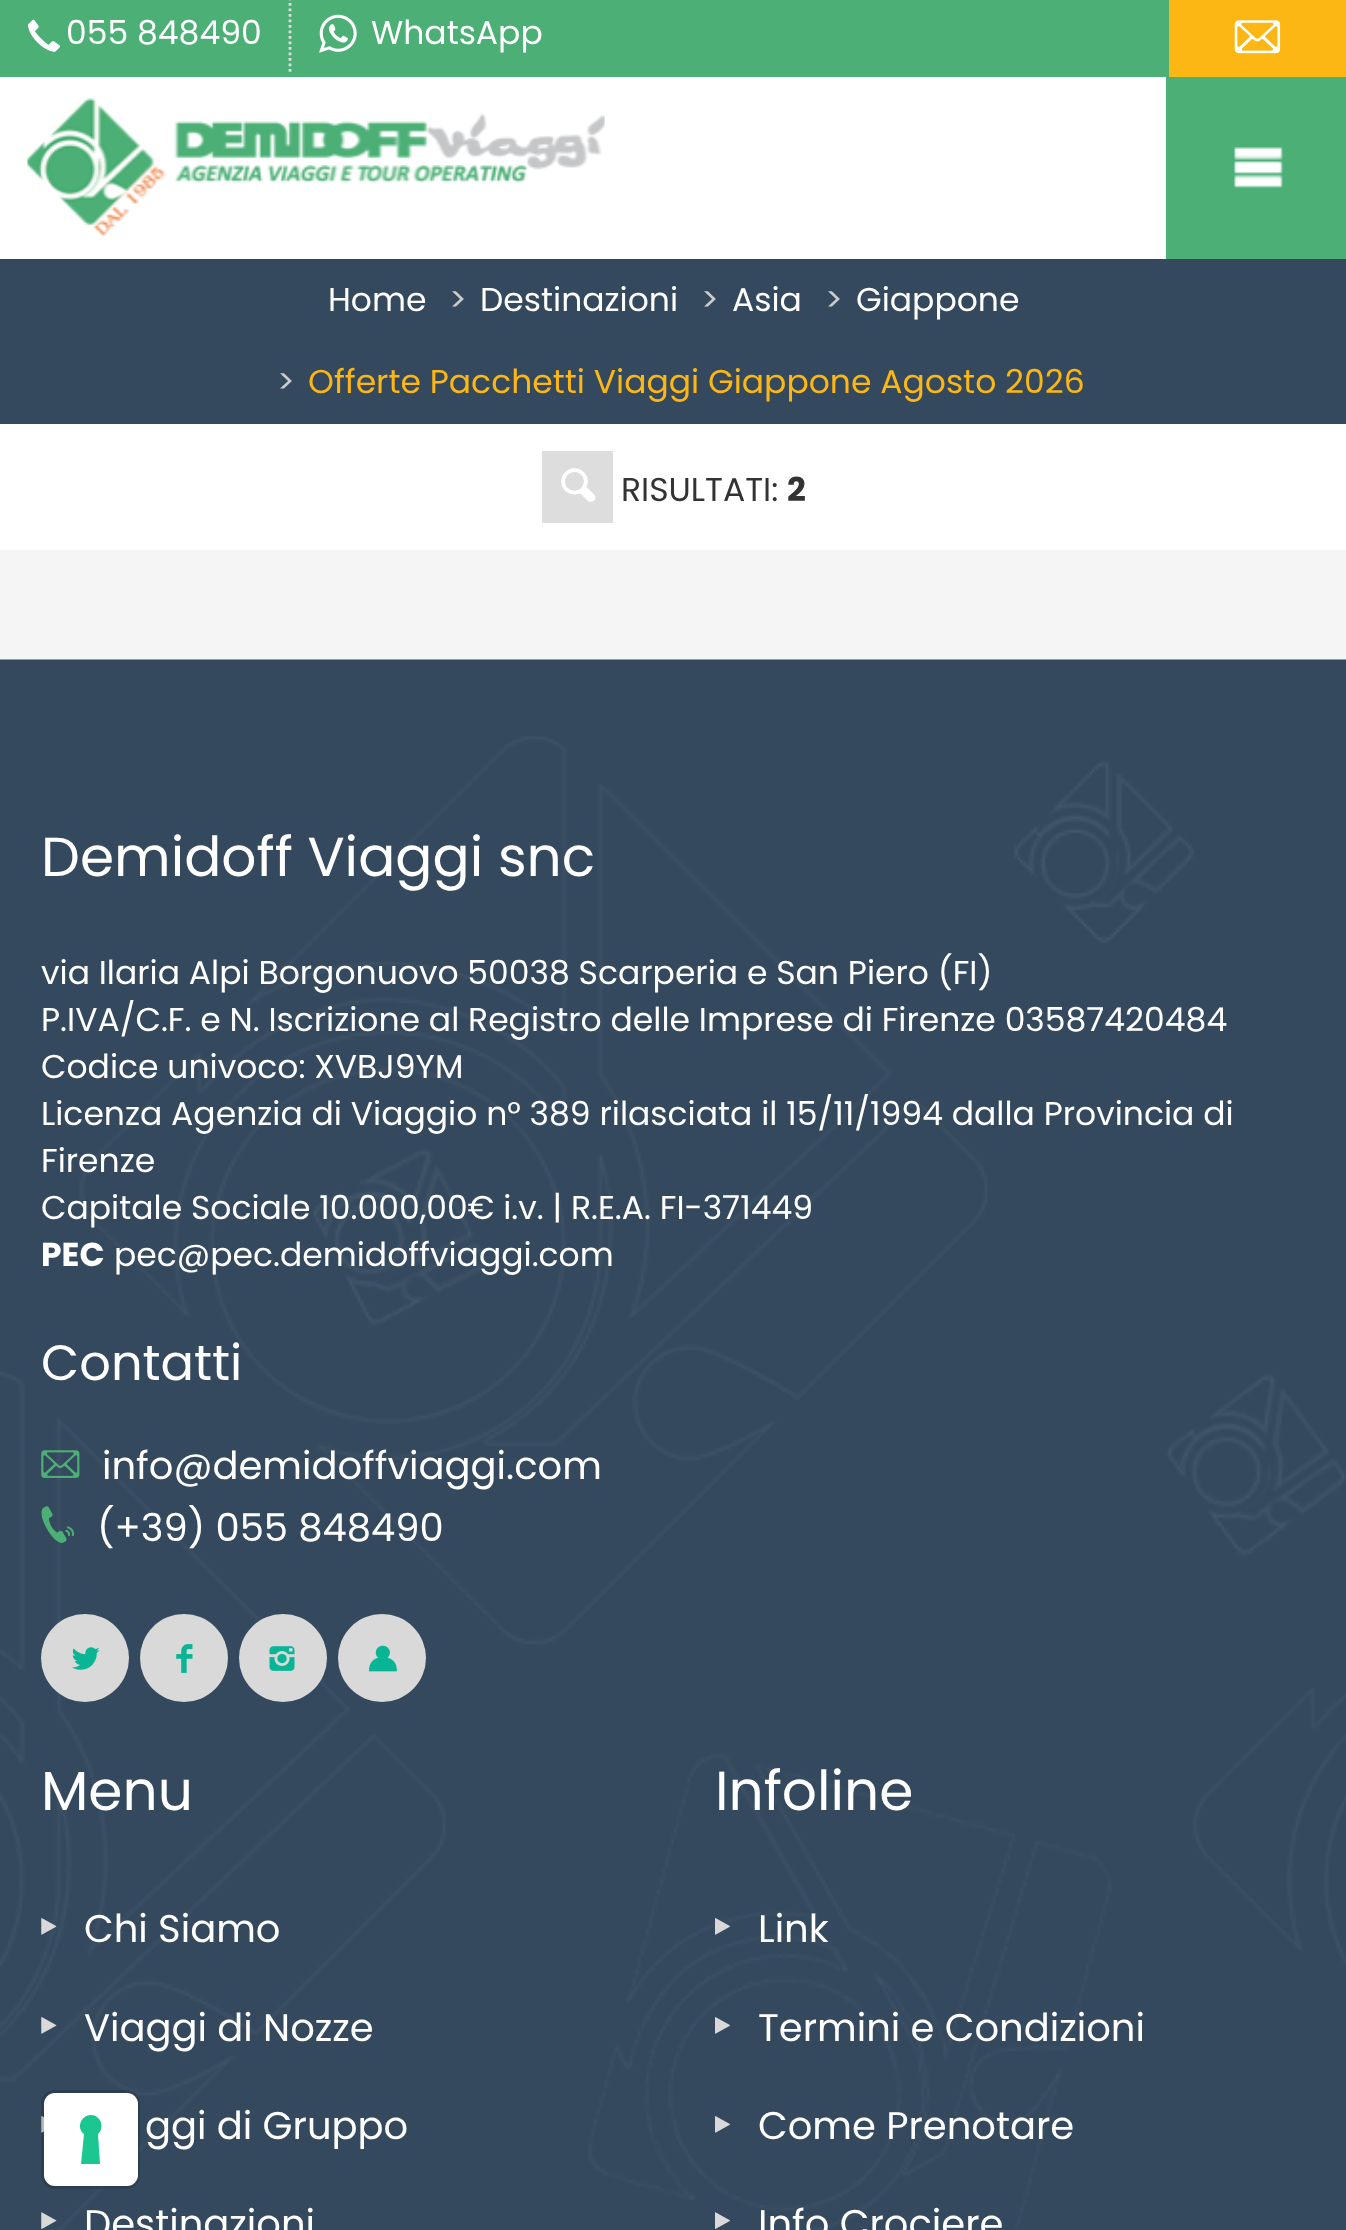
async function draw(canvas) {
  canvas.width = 1346;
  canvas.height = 2230;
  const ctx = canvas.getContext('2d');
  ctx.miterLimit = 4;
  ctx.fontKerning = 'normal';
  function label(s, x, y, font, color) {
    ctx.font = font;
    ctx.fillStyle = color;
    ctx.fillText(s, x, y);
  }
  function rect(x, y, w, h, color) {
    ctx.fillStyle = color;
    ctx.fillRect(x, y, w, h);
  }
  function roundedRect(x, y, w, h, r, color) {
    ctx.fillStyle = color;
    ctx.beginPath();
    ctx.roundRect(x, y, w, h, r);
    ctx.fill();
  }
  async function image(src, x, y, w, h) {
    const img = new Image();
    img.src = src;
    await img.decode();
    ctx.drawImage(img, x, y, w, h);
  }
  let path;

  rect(0, 0, 1346, 2230, '#f5f5f5');
  rect(0, 0, 1169, 77, '#4cb076');
  await image('assets/img1.png', 28, 19, 32, 33);
  label('055 848490', 66, 44, '33px Poppins', '#fff');
  path = new Path2D('M290-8V74');
  ctx.strokeStyle = '#ddd';
  ctx.lineWidth = 2.8;
  ctx.setLineDash([2.75, 2.75]);
  ctx.stroke(path);
  await image('assets/img2.png', 319, 14, 38, 39);
  label('WhatsApp', 371, 44, '33px Poppins', '#fff');
  rect(1169, 0, 177, 77, '#fdb714');
  await image('assets/img3.png', 1234, 20, 47, 34);
  rect(0, 77, 1166, 182, '#fff');
  await image('assets/img4.png', 27, 98, 578, 139);
  rect(1166, 77, 180, 182, '#4cb076');
  await image('assets/img5.png', 1234, 147, 49, 41);
  rect(0, 259, 1346, 165, '#34495e');
  label('Home', 328, 311, '33px Poppins', '#fff');
  label('>', 449, 311, '33px Poppins', '#ccc');
  label('Destinazioni', 480, 311, '33px Poppins', '#fff');
  label('>', 701, 311, '33px Poppins', '#ccc');
  label('Asia', 732, 311, '33px Poppins', '#fff');
  label('>', 825, 311, '33px Poppins', '#ccc');
  label('Giappone', 856, 311, '33px Poppins', '#fff');
  label('>', 277, 393, '33px Poppins', '#ccc');
  label('Offerte Pacchetti Viaggi Giappone Agosto 2026', 308, 393, '33px Poppins', '#fdb714');
  rect(0, 424, 1346, 126, '#fff');
  rect(542, 451, 71, 72, '#ddd');
  await image('assets/img6.png', 561, 468, 35, 34);
  label('RISULTATI:', 621, 501, '33px Poppins', '#333');
  label('2', 787, 501, 'bold 33px Poppins', '#333');
  await image('assets/img7.png', 0, 659, 1346, 1571);
  label('Demidoff Viaggi snc', 41, 876, '55px Poppins', '#fff');
  label('via Ilaria Alpi Borgonuovo 50038 Scarperia e San Piero (FI)', 41, 984, '33px Poppins', '#fff');
  label('P.IVA/C.F. e N. Iscrizione al Registro delle Imprese di Firenze 03587420484', 41, 1031, '33px Poppins', '#fff');
  label('Codice univoco: XVBJ9YM', 41, 1078, '33px Poppins', '#fff');
  label('Licenza Agenzia di Viaggio n° 389 rilasciata il 15/11/1994 dalla Provincia di', 41, 1125, '33px Poppins', '#fff');
  label('Firenze', 41, 1172, '33px Poppins', '#fff');
  label('Capitale Sociale 10.000,00€ i.v. | R.E.A. FI-371449', 41, 1219, '33px Poppins', '#fff');
  label('PEC', 41, 1266, 'bold 33px Poppins', '#fff');
  label('pec@pec.demidoffviaggi.com', 114, 1266, '33px Poppins', '#fff');
  label('Contatti', 41, 1380, '49.5px Poppins', '#fff');
  await image('assets/img8.png', 41, 1450, 39, 28);
  label('info@demidoffviaggi.com', 102, 1479, '38.5px Poppins', '#fff');
  await image('assets/img9.png', 41, 1506, 33, 37);
  label('(+39) 055 848490', 97, 1541, '38.5px Poppins', '#fff');
  ctx.fillStyle = '#d9d9d9';
  ctx.beginPath();
  ctx.arc(85, 1658, 44, 0, 2 * Math.PI);
  ctx.fill();
  await image('assets/img10.png', 71, 1647, 29, 23);
  ctx.beginPath();
  ctx.arc(184, 1658, 44, 0, 2 * Math.PI);
  ctx.fill();
  await image('assets/img11.png', 176, 1644, 17, 29);
  ctx.beginPath();
  ctx.arc(283, 1658, 44, 0, 2 * Math.PI);
  ctx.fill();
  await image('assets/img12.png', 269, 1646, 26, 25);
  ctx.beginPath();
  ctx.arc(382, 1658, 44, 0, 2 * Math.PI);
  ctx.fill();
  await image('assets/img13.png', 368, 1645, 29, 27);
  label('Menu', 41, 1810, '55px Poppins', '#fff');
  await image('assets/img14.png', 41, 1918, 16, 17);
  label('Chi Siamo', 84, 1942, '38.5px Poppins', '#fff');
  await image('assets/img15.png', 41, 2017, 16, 17);
  label('Viaggi di Nozze', 84, 2041, '38.5px Poppins', '#fff');
  await image('assets/img16.png', 41, 2116, 3, 17);
  label('ggi di Gruppo', 145, 2139, '38.5px Poppins', '#fff');
  await image('assets/img17.png', 41, 2212, 16, 17);
  label('Destinazioni', 84, 2237, '38.5px Poppins', '#fff');
  label('Infoline', 715, 1810, '55px Poppins', '#fff');
  await image('assets/img18.png', 715, 1918, 15, 17);
  label('Link', 758, 1942, '38.5px Poppins', '#fff');
  await image('assets/img19.png', 715, 2017, 15, 17);
  label('Termini e Condizioni', 758, 2041, '38.5px Poppins', '#fff');
  await image('assets/img19.png', 715, 2116, 15, 17);
  label('Come Prenotare', 758, 2139, '38.5px Poppins', '#fff');
  await image('assets/img20.png', 715, 2212, 15, 17);
  label('Info Crociere', 758, 2237, '38.5px Poppins', '#fff');
  ctx.beginPath();
  ctx.roundRect(42.5, 2091.5, 96, 96, 12.5);
  ctx.strokeStyle = '#00000026';
  ctx.lineWidth = 3;
  ctx.setLineDash([]);
  ctx.stroke();
  roundedRect(44, 2093, 94, 93, 11, '#fff');
  ctx.fillStyle = '#1cc691';
  path = new Path2D('M91 2115C101 2115 105 2128 98 2134L100 2164H81L84 2134C76 2128 81 2115 91 2115Z');
  ctx.fill(path, 'evenodd');
}

draw(document.querySelector('canvas'));
